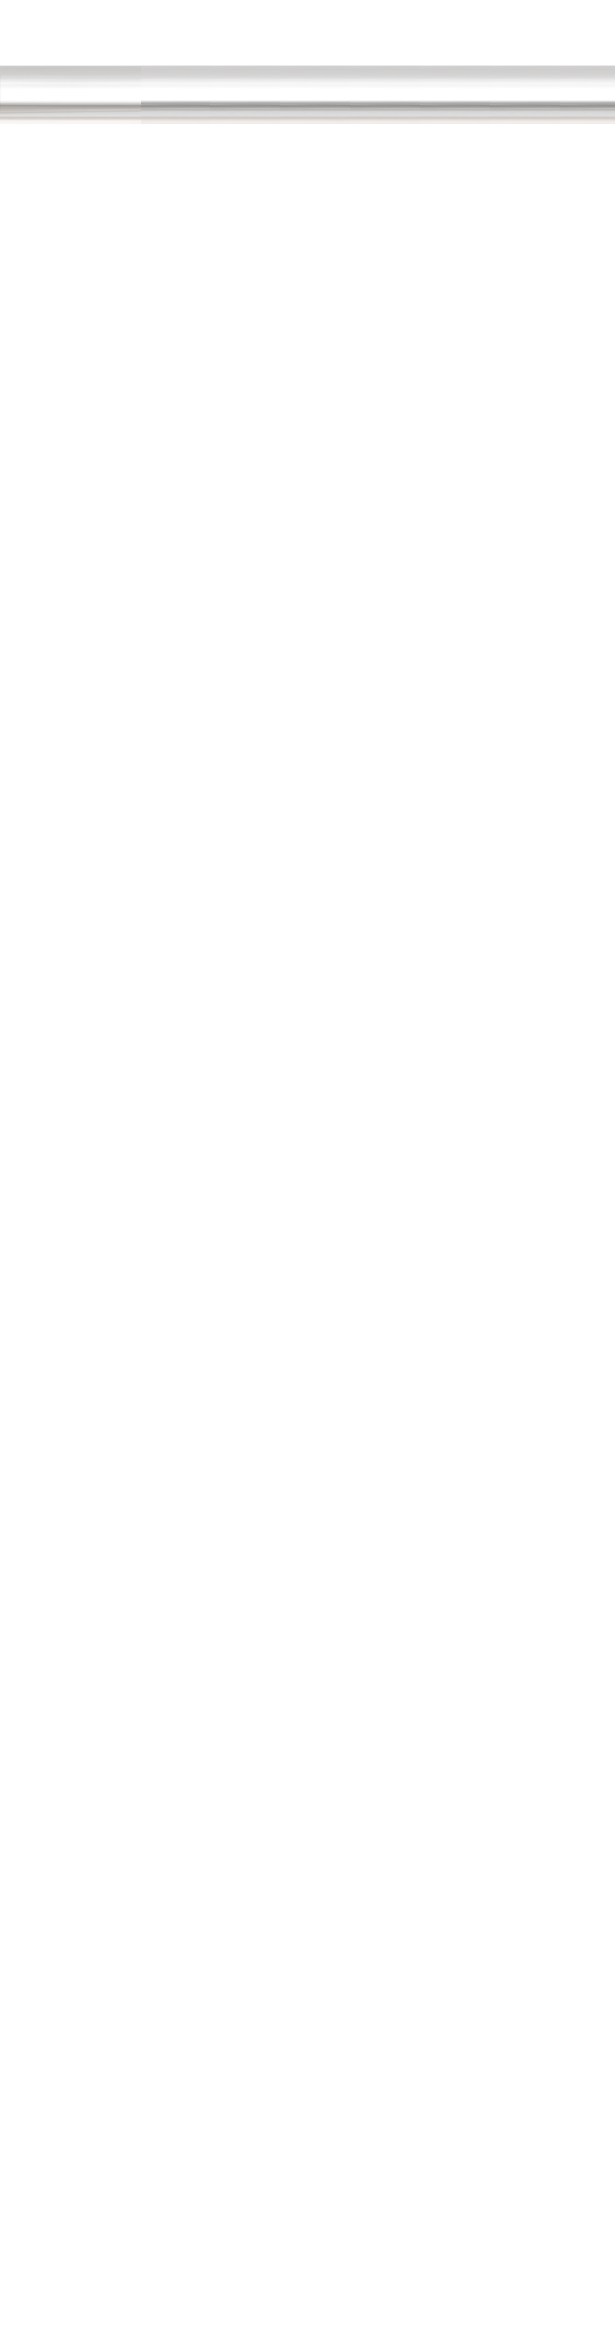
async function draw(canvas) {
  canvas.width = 615;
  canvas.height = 2340;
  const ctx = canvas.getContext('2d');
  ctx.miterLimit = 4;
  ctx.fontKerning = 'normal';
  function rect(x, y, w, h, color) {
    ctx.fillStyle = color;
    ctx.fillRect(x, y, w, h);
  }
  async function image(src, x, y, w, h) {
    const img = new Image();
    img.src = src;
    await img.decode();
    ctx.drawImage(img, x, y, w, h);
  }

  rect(0, 0, 615, 2340, '#fff');
  await image('assets/img1.png', 141, 65, 474, 59);
  await image('assets/img2.png', 0, 65, 141, 59);
}

draw(document.querySelector('canvas'));
